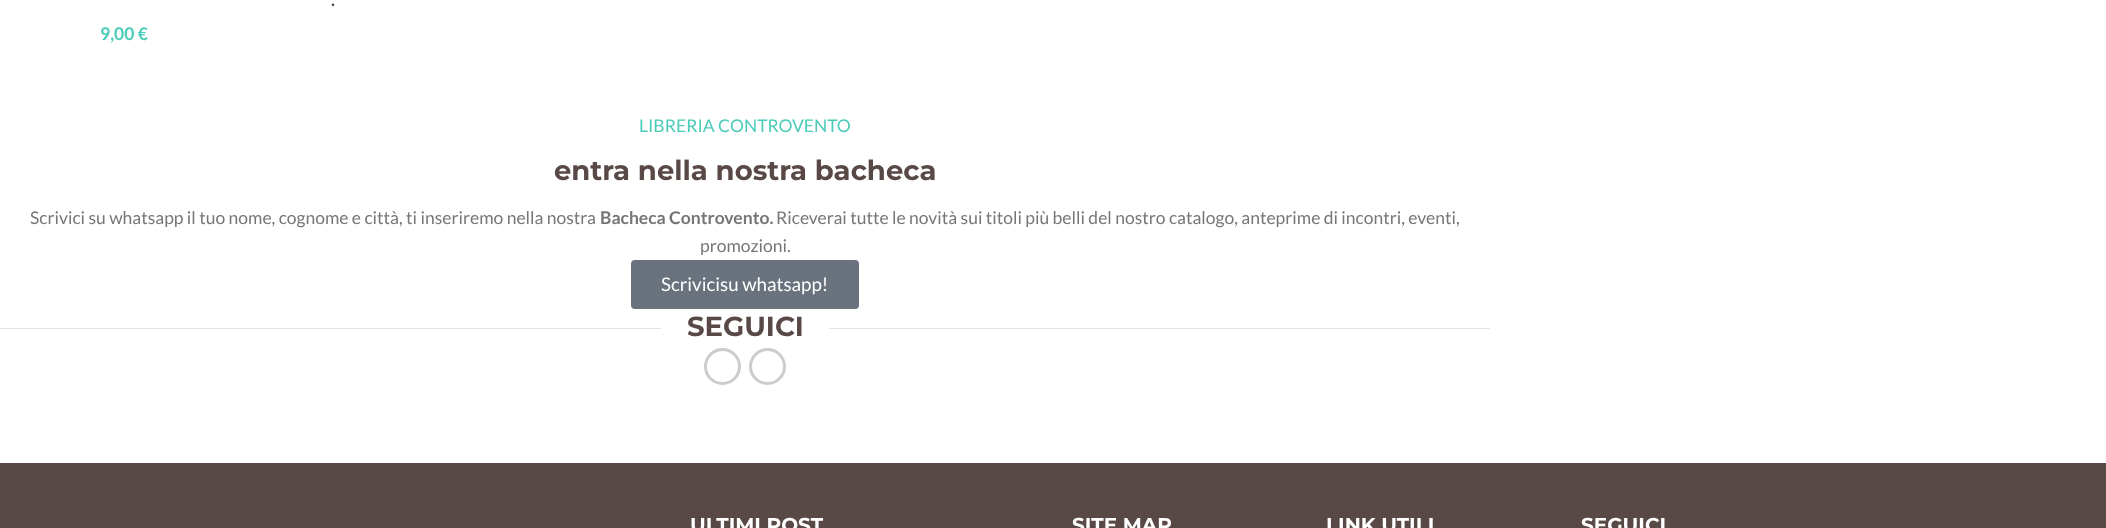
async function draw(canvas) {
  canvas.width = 2106;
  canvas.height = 528;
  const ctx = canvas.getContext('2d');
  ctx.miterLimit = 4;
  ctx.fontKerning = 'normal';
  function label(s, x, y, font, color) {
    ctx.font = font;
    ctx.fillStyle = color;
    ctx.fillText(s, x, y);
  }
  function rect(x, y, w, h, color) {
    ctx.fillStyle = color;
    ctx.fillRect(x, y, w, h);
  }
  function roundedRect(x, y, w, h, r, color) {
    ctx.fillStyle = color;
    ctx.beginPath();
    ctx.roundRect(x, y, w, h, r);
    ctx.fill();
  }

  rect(0, 0, 2106, 528, '#fff');
  label('.', 331, 6, 'bold 17.5px Lato', '#594946');
  label('9,00 €', 100, 40, 'bold 17.5px Lato', '#4bccb9');
  label('LIBRERIA CONTROVENTO', 639, 132, '17.5px Lato', '#4bccb9');
  label('entra nella nostra bacheca', 554, 180, 'bold 27.5px Montserrat', '#594946');
  label('Scrivici su whatsapp il tuo nome, cognome e città, ti inseriremo nella nostra', 30, 224, '17.5px Lato', '#767676');
  label('Bacheca Controvento.', 600, 224, 'bold 17.5px Lato', '#767676');
  label('Riceverai tutte le novità sui titoli più belli del nostro catalogo, anteprime di incontri, eventi,', 776, 224, '17.5px Lato', '#767676');
  label('promozioni.', 700, 252, '17.5px Lato', '#767676');
  roundedRect(631, 260, 228, 49, 4, '#69727d');
  label('Scrivicisu whatsapp!', 661, 291, '18.75px Lato', '#fff');
  rect(0, 328, 661, 1, '#e4e4e4');
  label('SEGUICI', 687, 336, 'bold 27.5px Montserrat', '#594946');
  rect(829, 328, 661, 1, '#e4e4e4');
  ctx.beginPath();
  ctx.arc(722.5, 366.5, 17, 0, 2 * Math.PI);
  ctx.strokeStyle = '#ccc';
  ctx.lineWidth = 3;
  ctx.stroke();
  ctx.beginPath();
  ctx.arc(767.5, 366.5, 17, 0, 2 * Math.PI);
  ctx.stroke();
  rect(0, 463, 2106, 65, '#594946');
  label('ULTIMI POST', 690, 532, 'bold 20px Montserrat', '#fff');
  label('SITE MAP', 1072, 532, 'bold 20px Montserrat', '#fff');
  label('LINK UTILI', 1326, 532, 'bold 20px Montserrat', '#fff');
  label('SEGUICI', 1581, 532, 'bold 20px Montserrat', '#fff');
}

draw(document.querySelector('canvas'));
